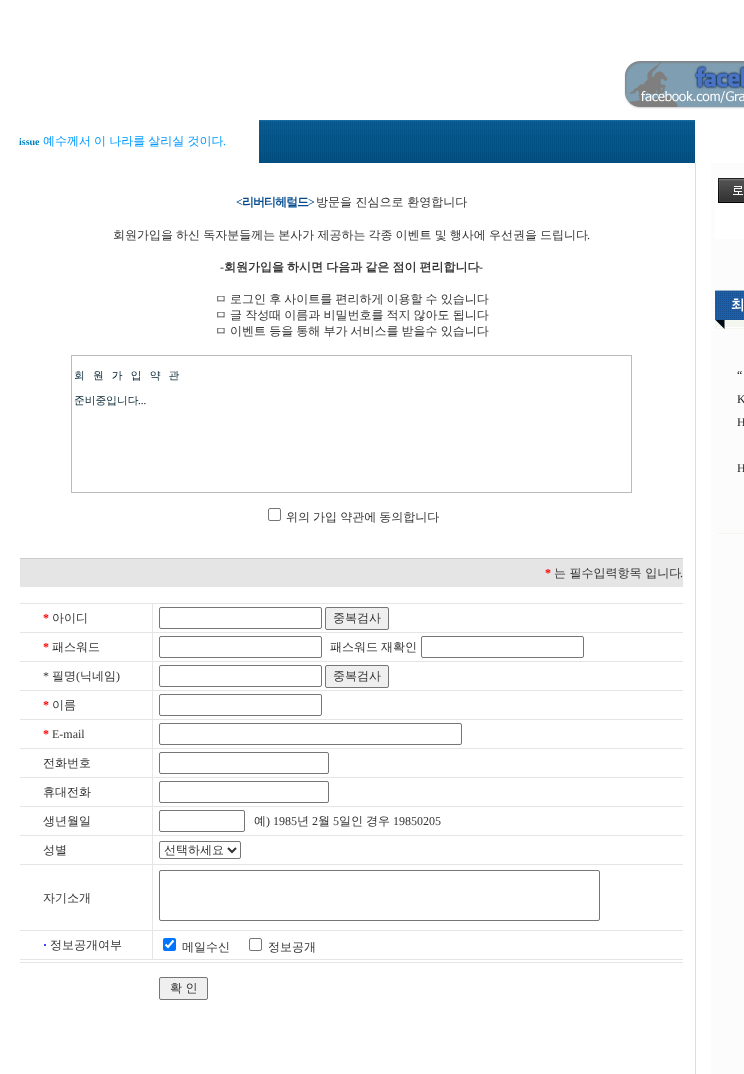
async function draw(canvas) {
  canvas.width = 744;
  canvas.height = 1074;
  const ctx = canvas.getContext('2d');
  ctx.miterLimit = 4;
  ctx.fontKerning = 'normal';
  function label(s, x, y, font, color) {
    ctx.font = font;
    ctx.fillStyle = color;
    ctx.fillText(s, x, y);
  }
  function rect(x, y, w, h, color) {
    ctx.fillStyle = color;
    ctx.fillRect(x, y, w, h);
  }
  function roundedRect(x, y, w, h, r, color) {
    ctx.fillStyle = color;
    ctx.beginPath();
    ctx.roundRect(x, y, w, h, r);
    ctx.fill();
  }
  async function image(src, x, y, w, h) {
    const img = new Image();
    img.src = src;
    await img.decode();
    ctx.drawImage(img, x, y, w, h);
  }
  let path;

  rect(0, 0, 744, 1074, '#fff');
  await image('assets/img1.png', 624, 61, 120, 48);
  label('issue', 19, 145, 'bold 10px Liberation Serif', '#0080c0');
  ctx.wordSpacing = '-0.5px';
  label('예수께서 이 나라를 살리실 것이다', 43, 145, '500 12px WenQuanYi Zen Hei', '#09f');
  ctx.wordSpacing = '0px';
  label('.', 223, 145, '12px Liberation Serif', '#09f');
  await image('assets/img2.png', 259, 120, 436, 43);
  ctx.letterSpacing = '-1px';
  label('<', 236, 206, 'bold 12px Liberation Serif', '#01498d');
  label('리버티헤럴드', 242, 206, 'bold 12px WenQuanYi Zen Hei', '#01498d');
  label('>', 308, 206, 'bold 12px Liberation Serif', '#01498d');
  ctx.letterSpacing = '0px';
  label('방문을 진심으로 환영합니다', 316, 206, '500 12px WenQuanYi Zen Hei', '#333');
  ctx.wordSpacing = '-0.5px';
  label('회원가입을 하신 독자분들께는 본사가 제공하는 각종 이벤트 및 행사에 우선권을 드립니다', 113, 239, '500 12px WenQuanYi Zen Hei', '#333');
  ctx.wordSpacing = '0px';
  label('.', 587, 239, '12px Liberation Serif', '#333');
  label('-', 220, 271, '12px Liberation Serif', '#333');
  ctx.wordSpacing = '-0.5px';
  label('회원가입을 하시면 다음과 같은 점이 편리합니다', 224, 271, 'bold 12px WenQuanYi Zen Hei', '#333');
  ctx.wordSpacing = '0px';
  label('-', 479, 271, '12px Liberation Serif', '#333');
  ctx.wordSpacing = '-0.5px';
  label('ㅁ 로그인 후 사이트를 편리하게 이용할 수 있습니다', 215, 303, '500 12px WenQuanYi Zen Hei', '#333');
  label('ㅁ 글 작성때 이름과 비밀번호를 적지 않아도 됩니다', 215, 319, '500 12px WenQuanYi Zen Hei', '#333');
  label('ㅁ 이벤트 등을 통해 부가 서비스를 받을수 있습니다', 215, 335, '500 12px WenQuanYi Zen Hei', '#333');
  ctx.strokeStyle = '#bbb';
  ctx.strokeRect(71.5, 355.5, 560, 137);
  label('회   원   가   입   약   관', 74, 379, '500 10.75px WenQuanYi Zen Hei', '#042330');
  ctx.wordSpacing = '0px';
  label('준비중입니다', 74, 404, '500 10.75px WenQuanYi Zen Hei', '#042330');
  label('...', 138, 404, '10.75px Liberation Serif', '#042330');
  ctx.beginPath();
  ctx.roundRect(268.5, 508.5, 12, 12, 1.5);
  ctx.strokeStyle = '#767676';
  ctx.stroke();
  ctx.wordSpacing = '-0.5px';
  label('위의 가입 약관에 동의합니다', 286, 521, '500 12px WenQuanYi Zen Hei', '#333');
  rect(20, 558, 663, 1, '#ccc');
  rect(20, 559, 663, 28, '#e5e5e5');
  ctx.wordSpacing = '0px';
  label('*', 545, 577, 'bold 12px Liberation Serif', '#f00');
  label('는 필수입력항목 입니다', 554, 577, '500 12px WenQuanYi Zen Hei', '#333');
  label('.', 680, 577, '12px Liberation Serif', '#333');
  rect(20, 603, 663, 1, '#e5e5e5');
  label('*', 43, 622, 'bold 12px Liberation Serif', '#f00');
  label('아이디', 52, 622, '500 12px WenQuanYi Zen Hei', '#333');
  rect(152, 604, 1, 28, '#e5e5e5');
  ctx.beginPath();
  ctx.roundRect(159.5, 607.5, 162, 21, 1.5);
  ctx.stroke();
  ctx.fillStyle = '#efefef';
  ctx.beginPath();
  ctx.roundRect(325.5, 607.5, 63, 22, 1.5);
  ctx.fill();
  ctx.stroke();
  label('중복검사', 333, 622, '500 12px WenQuanYi Zen Hei', '#333');
  rect(20, 632, 663, 1, '#e5e5e5');
  label('*', 43, 651, 'bold 12px Liberation Serif', '#f00');
  label('패스워드', 52, 651, '500 12px WenQuanYi Zen Hei', '#333');
  rect(152, 633, 1, 28, '#e5e5e5');
  ctx.beginPath();
  ctx.roundRect(159.5, 636.5, 162, 21, 1.5);
  ctx.stroke();
  ctx.wordSpacing = '-0.5px';
  label('패스워드 재확인', 330, 651, '500 12px WenQuanYi Zen Hei', '#333');
  ctx.beginPath();
  ctx.roundRect(421.5, 636.5, 162, 21, 1.5);
  ctx.stroke();
  rect(20, 661, 663, 1, '#e5e5e5');
  ctx.wordSpacing = '0px';
  label('*', 43, 680, '12px Liberation Serif', '#333');
  label('필명', 52, 680, '500 12px WenQuanYi Zen Hei', '#333');
  label('(', 76, 680, '12px Liberation Serif', '#333');
  label('닉네임', 80, 680, '500 12px WenQuanYi Zen Hei', '#333');
  label(')', 116, 680, '12px Liberation Serif', '#333');
  rect(152, 662, 1, 28, '#e5e5e5');
  ctx.beginPath();
  ctx.roundRect(159.5, 665.5, 162, 21, 1.5);
  ctx.stroke();
  ctx.fillStyle = '#efefef';
  ctx.beginPath();
  ctx.roundRect(325.5, 665.5, 63, 22, 1.5);
  ctx.fill();
  ctx.stroke();
  label('중복검사', 333, 680, '500 12px WenQuanYi Zen Hei', '#333');
  rect(20, 690, 663, 1, '#e5e5e5');
  label('*', 43, 709, 'bold 12px Liberation Serif', '#f00');
  label('이름', 52, 709, '500 12px WenQuanYi Zen Hei', '#333');
  rect(152, 691, 1, 28, '#e5e5e5');
  ctx.beginPath();
  ctx.roundRect(159.5, 694.5, 162, 21, 1.5);
  ctx.stroke();
  rect(20, 719, 663, 1, '#e5e5e5');
  label('*', 43, 738, 'bold 12px Liberation Serif', '#f00');
  label('E-mail', 52, 738, '12px Liberation Serif', '#333');
  rect(152, 720, 1, 28, '#e5e5e5');
  ctx.beginPath();
  ctx.roundRect(159.5, 723.5, 302, 21, 1.5);
  ctx.stroke();
  rect(20, 748, 663, 1, '#e5e5e5');
  label('전화번호', 43, 767, '500 12px WenQuanYi Zen Hei', '#333');
  rect(152, 749, 1, 28, '#e5e5e5');
  ctx.beginPath();
  ctx.roundRect(159.5, 752.5, 169, 21, 1.5);
  ctx.stroke();
  rect(20, 777, 663, 1, '#e5e5e5');
  label('휴대전화', 43, 796, '500 12px WenQuanYi Zen Hei', '#333');
  rect(152, 778, 1, 28, '#e5e5e5');
  ctx.beginPath();
  ctx.roundRect(159.5, 781.5, 169, 21, 1.5);
  ctx.stroke();
  rect(20, 806, 663, 1, '#e5e5e5');
  label('생년월일', 43, 825, '500 12px WenQuanYi Zen Hei', '#333');
  rect(152, 807, 1, 28, '#e5e5e5');
  ctx.beginPath();
  ctx.roundRect(159.5, 810.5, 85, 21, 1.5);
  ctx.stroke();
  label('예', 254, 825, '500 12px WenQuanYi Zen Hei', '#333');
  label(') 1985', 266, 825, '12px Liberation Serif', '#333');
  label('년', 297, 825, '500 12px WenQuanYi Zen Hei', '#333');
  label('2', 312, 825, '12px Liberation Serif', '#333');
  label('월', 318, 825, '500 12px WenQuanYi Zen Hei', '#333');
  label('5', 333, 825, '12px Liberation Serif', '#333');
  label('일인', 339, 825, '500 12px WenQuanYi Zen Hei', '#333');
  label('경우', 366, 825, '500 12px WenQuanYi Zen Hei', '#333');
  label('19850205', 393, 825, '12px Liberation Serif', '#333');
  rect(20, 835, 663, 1, '#e5e5e5');
  label('성별', 43, 854, '500 12px WenQuanYi Zen Hei', '#333');
  rect(152, 836, 1, 28, '#e5e5e5');
  ctx.beginPath();
  ctx.roundRect(159.5, 841.5, 81, 17, 1.5);
  ctx.stroke();
  path = new Path2D('M228 848L232 852L236 848');
  ctx.strokeStyle = '#333';
  ctx.lineWidth = 2;
  ctx.stroke(path);
  label('선택하세요', 164, 854, '500 12px WenQuanYi Zen Hei', '#333');
  rect(20, 864, 663, 1, '#e5e5e5');
  label('자기소개', 43, 902, '500 12px WenQuanYi Zen Hei', '#333');
  rect(152, 865, 1, 65, '#e5e5e5');
  ctx.beginPath();
  ctx.roundRect(159.5, 870.5, 440, 50, 1.5);
  ctx.strokeStyle = '#767676';
  ctx.lineWidth = 1;
  ctx.stroke();
  rect(20, 930, 663, 1, '#e5e5e5');
  label('·', 43, 949, 'bold 12px Liberation Serif', '#00f');
  label('정보공개여부', 50, 949, '500 12px WenQuanYi Zen Hei', '#333');
  rect(152, 931, 1, 28, '#e5e5e5');
  roundedRect(163, 938, 13, 13, 2, '#0075ff');
  path = new Path2D('M165.5 944.5L168 947L173.5 940.5');
  ctx.strokeStyle = '#fff';
  ctx.lineWidth = 2.1;
  ctx.stroke(path);
  label('메일수신', 182, 951, '500 12px WenQuanYi Zen Hei', '#333');
  ctx.beginPath();
  ctx.roundRect(249.5, 938.5, 12, 12, 1.5);
  ctx.strokeStyle = '#767676';
  ctx.lineWidth = 1;
  ctx.stroke();
  label('정보공개', 268, 951, '500 12px WenQuanYi Zen Hei', '#333');
  rect(20, 959, 663, 1, '#e5e5e5');
  rect(20, 962, 663, 1, '#e5e5e5');
  ctx.fillStyle = '#efefef';
  ctx.beginPath();
  ctx.roundRect(159.5, 977.5, 48, 22, 1.5);
  ctx.fill();
  ctx.stroke();
  label('확 인', 170, 992, '500 12px WenQuanYi Zen Hei', '#333');
  rect(695, 163, 1, 911, '#ddd');
  rect(711, 163, 33, 911, '#fcfcfc');
  rect(715, 178, 29, 61, '#fff');
  await image('assets/img3.png', 718, 178, 26, 25);
  await image('assets/img4.png', 715, 290, 29, 39);
  label('“', 737, 379, '12px Liberation Serif', '#222');
  label('K', 737, 403, '12px Liberation Serif', '#222');
  label('H', 737, 426, '12px Liberation Serif', '#222');
  label('H', 737, 472, '12px Liberation Serif', '#222');
  rect(718, 533, 26, 1, '#f4f7f0');
}

draw(document.querySelector('canvas'));
